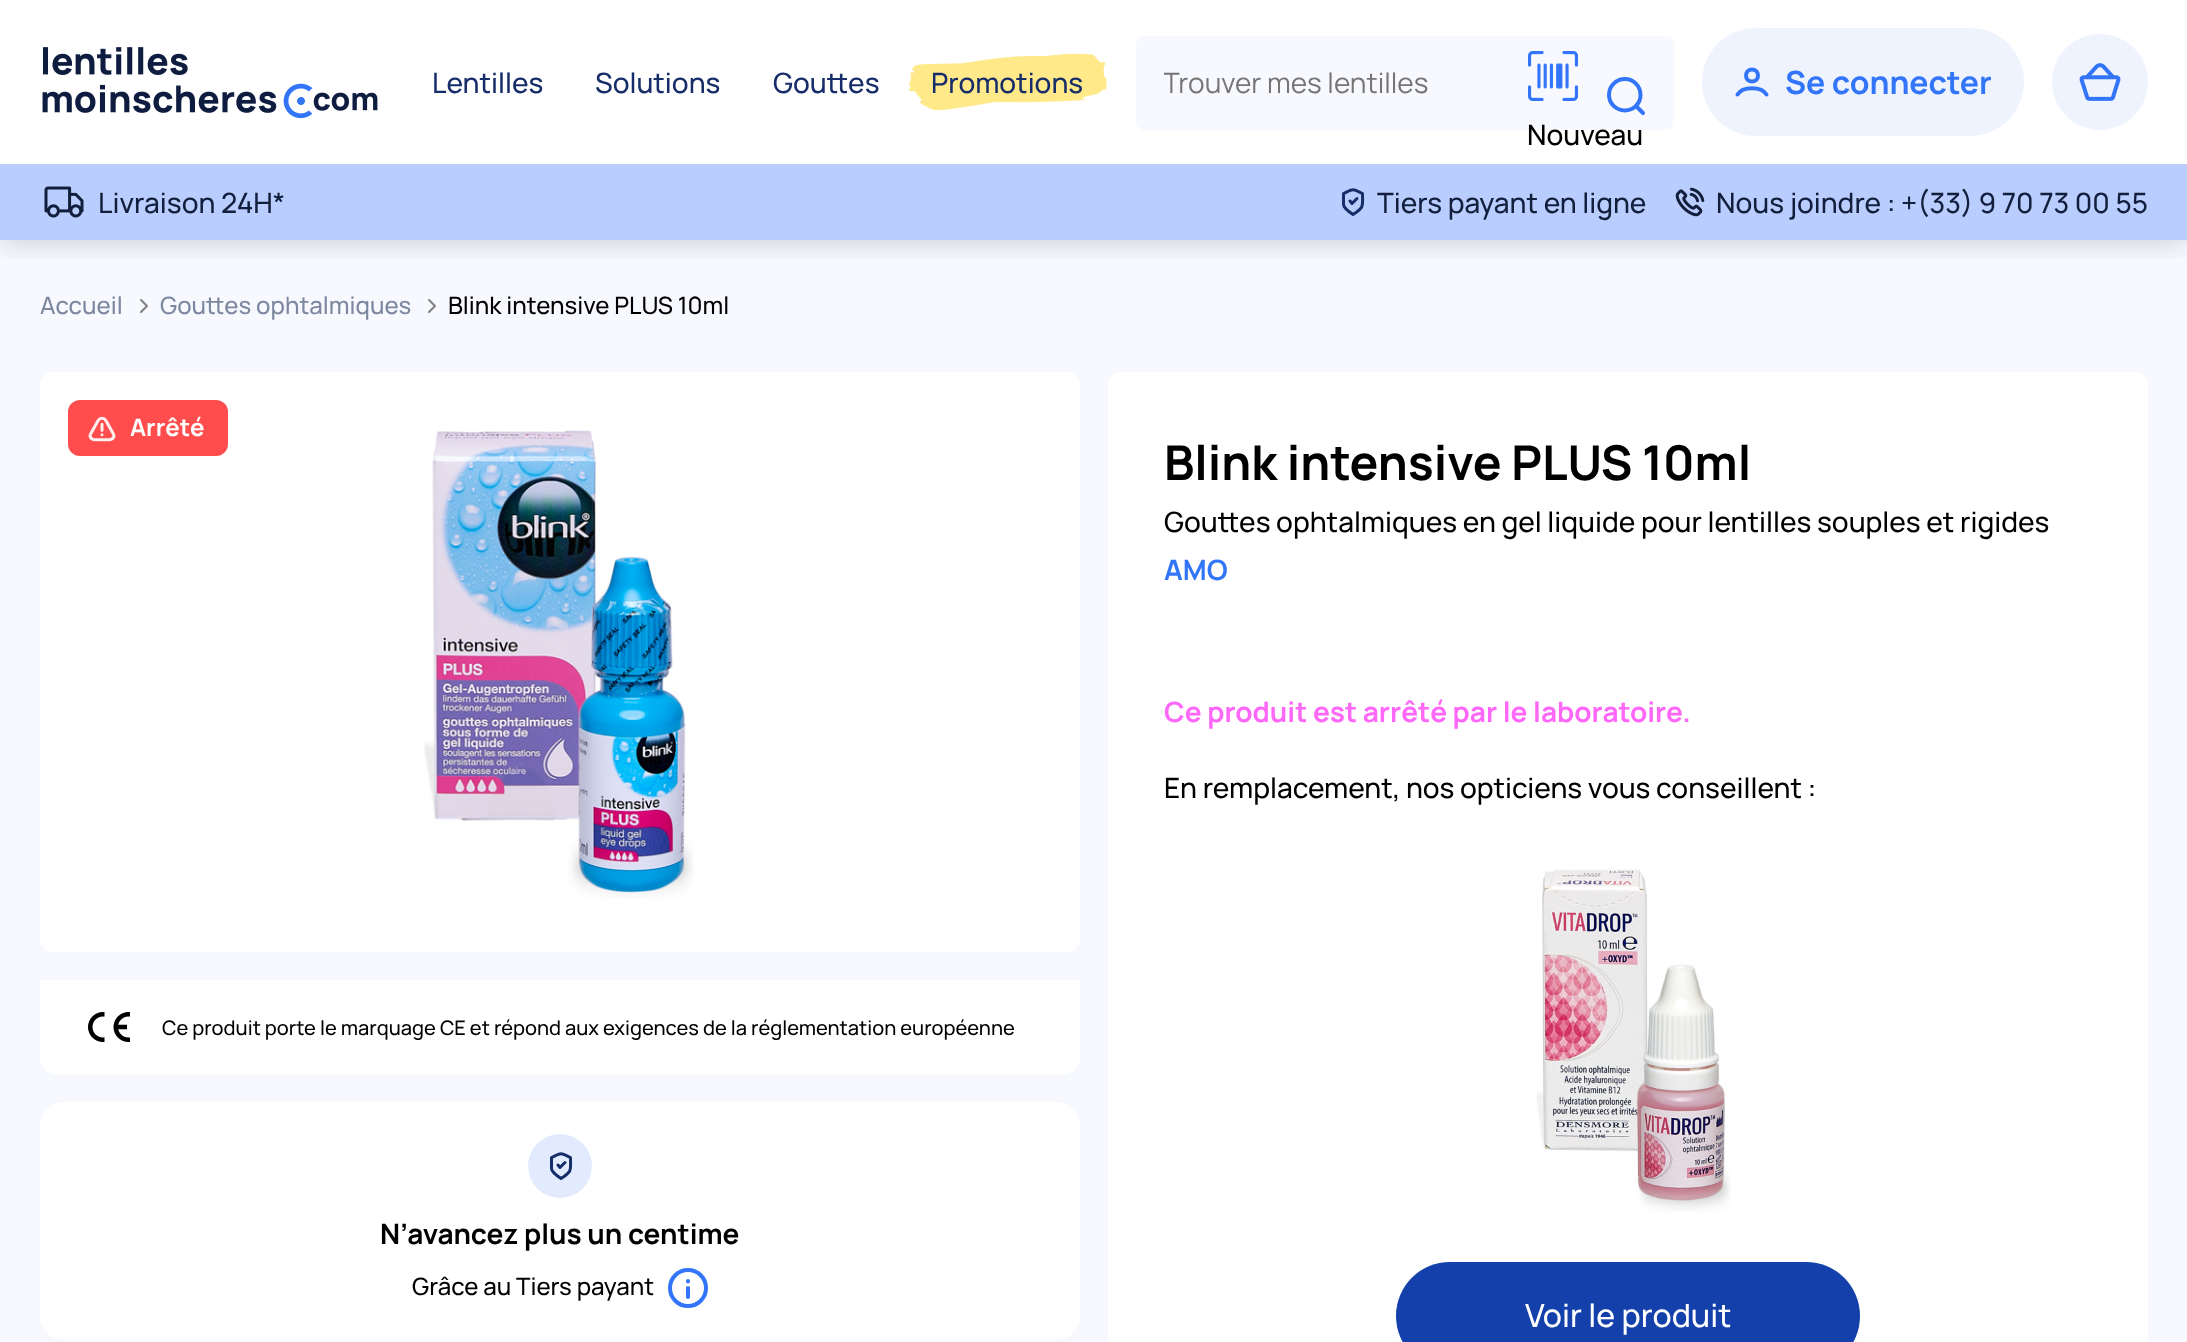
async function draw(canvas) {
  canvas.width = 2187;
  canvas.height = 1342;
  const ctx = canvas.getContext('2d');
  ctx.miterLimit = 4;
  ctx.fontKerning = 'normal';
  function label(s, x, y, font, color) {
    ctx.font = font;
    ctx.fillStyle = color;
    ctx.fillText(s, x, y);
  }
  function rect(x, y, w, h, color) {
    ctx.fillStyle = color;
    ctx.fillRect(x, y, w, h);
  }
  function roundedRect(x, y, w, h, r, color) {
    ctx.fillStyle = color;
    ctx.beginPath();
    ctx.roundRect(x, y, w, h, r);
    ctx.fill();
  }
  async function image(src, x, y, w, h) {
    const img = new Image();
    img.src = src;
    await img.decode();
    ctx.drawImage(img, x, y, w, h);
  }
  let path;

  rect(0, 0, 2187, 1342, '#fff');
  rect(0, 240, 2187, 1102, '#f7f9ff');
  ctx.save();
  ctx.beginPath();
  ctx.rect(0, 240, 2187, 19);
  ctx.clip();
  ctx.fillStyle = '#00000033';
  ctx.filter = 'blur(15px)';
  ctx.beginPath();
  ctx.rect(0, 0, 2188, 240);
  ctx.fill();
  ctx.filter = 'none';
  ctx.restore();
  await image('assets/img1.png', 42, 47, 336, 72);
  label('Lentilles', 432, 93, '500 28px Manrope', '#162d6a');
  label('Solutions', 595, 93, '500 28px Manrope', '#162d6a');
  label('Gouttes', 773, 93, '500 28px Manrope', '#162d6a');
  await image('assets/img2.png', 908, 54, 199, 56);
  label('Promotions', 931, 93, '500 28px Manrope', '#162d6a');
  roundedRect(1136, 36, 538, 94, 8, '#f7f9ff');
  ctx.save();
  ctx.beginPath();
  ctx.rect(1164, 64, 440, 38);
  ctx.clip();
  label('Trouver mes lentilles', 1163, 93, '28px Manrope', '#757575');
  ctx.restore();
  path = new Path2D('M1636 106L1643 113M1640.5 95C1640.5 103.5 1633.5 110.5 1625 110.5C1616 110.5 1609 103.5 1609 95C1609 86 1616 79 1625 79C1633.5 79 1640.5 86 1640.5 95Z');
  ctx.strokeStyle = '#3275f9';
  ctx.lineWidth = 4;
  ctx.lineCap = 'round';
  ctx.stroke(path);
  await image('assets/img3.png', 1528, 51, 50, 50);
  label('Nouveau', 1527, 145, '500 28px Manrope', '#000');
  roundedRect(1702, 28, 322, 108, 54, '#eef3fe');
  path = new Path2D('M1737.5 94.5C1742.5 86 1761.5 86 1766.5 94.5M1758 75.5C1758 83.5 1746 83.5 1746 75.5C1746 67.5 1758 67.5 1758 75.5Z');
  ctx.stroke(path);
  label('Se connecter', 1785, 94, 'bold 32px Manrope', '#3275f9');
  ctx.fillStyle = '#eef3fe';
  ctx.beginPath();
  ctx.arc(2100, 82, 48, 0, 2 * Math.PI);
  ctx.fill();
  await image('assets/img4.png', 2079, 63, 42, 38);
  rect(0, 164, 2187, 76, '#b9cefe');
  await image('assets/img5.png', 44, 186, 40, 32);
  label('Livraison 24H*', 98, 213, '500 28px Manrope', '#121e3c');
  path = new Path2D('M1350 201L1352 203.5L1357 198.5M1343.5 193.5C1354.5 188.5 1351.5 188.5 1362.5 193.5C1362.5 206.5 1364.5 207 1353 214.5C1347 210.5 1343.5 207.5 1343.5 204.5Z');
  ctx.strokeStyle = '#162d6a';
  ctx.lineWidth = 3;
  ctx.lineJoin = 'round';
  ctx.stroke(path);
  label('Tiers payant en ligne', 1377, 213, '500 28px Manrope', '#121e3c');
  await image('assets/img6.png', 1675, 187, 30, 30);
  label('Nous joindre : +(33) 9 70 73 00 55', 1716, 213, '500 28px Manrope', '#121e3c');
  label('Accueil', 40, 314, '500 24px Manrope', '#7d879f');
  await image('assets/img7.png', 140, 299, 8, 14);
  label('Gouttes ophtalmiques', 160, 314, '500 24px Manrope', '#7d879f');
  await image('assets/img7.png', 428, 299, 8, 14);
  label('Blink intensive PLUS 10ml', 448, 314, '500 24px Manrope', '#000');
  roundedRect(40, 372, 1040, 580, 14, '#fff');
  roundedRect(68, 400, 160, 56, 12, '#ff4d4d');
  await image('assets/img8.png', 88, 416, 28, 26);
  label('Arrêté', 130, 436, 'bold 24px Manrope', '#fff');
  await image('assets/img9.png', 424, 430, 270, 469);
  ctx.beginPath();
  ctx.roundRect(40, 980, 1040, 94, [0, 0, 16, 16]);
  ctx.fill();
  await image('assets/img10.png', 88, 1012, 42, 30);
  label('Ce produit porte le marquage CE et répond aux exigences de la réglementation européenne', 162, 1035, '500 20px Manrope', '#000');
  roundedRect(40, 1102, 1040, 238, 24, '#fff');
  ctx.fillStyle = '#e2ebfe';
  ctx.beginPath();
  ctx.arc(560, 1166, 32, 0, 2 * Math.PI);
  ctx.fill();
  path = new Path2D('M558 1165L560 1167.5L565 1162.5M551.5 1157.5C562.5 1152.5 559.5 1152.5 570.5 1157.5C570.5 1170.5 572.5 1171 561 1178.5C555 1174.5 551.5 1171.5 551.5 1168.5Z');
  ctx.stroke(path);
  label('N’avancez plus un centime', 380, 1244, 'bold 28px Manrope', '#000');
  label('Grâce au Tiers payant', 412, 1295, '500 24px Manrope', '#000');
  path = new Path2D('M688 1288V1297M688 1281.5V1281M670 1288C670 1278 678 1270 688 1270C698 1270 706 1278 706 1288C706 1298 698 1306 688 1306C678 1306 670 1298 670 1288');
  ctx.strokeStyle = '#3275f9';
  ctx.lineWidth = 4;
  ctx.stroke(path);
  roundedRect(1108, 372, 1040, 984, 14, '#fff');
  label('Blink intensive PLUS 10ml', 1164, 480, 'bold 48px Manrope', '#000');
  label('Gouttes ophtalmiques en gel liquide pour lentilles souples et rigides', 1164, 532, '500 28px Manrope', '#000');
  label('AMO', 1164, 580, 'bold 28px Manrope', '#3275f9');
  label('Ce produit est arrêté par le laboratoire.', 1164, 722, 'bold 28px Manrope', '#fe67f8');
  label('En remplacement, nos opticiens vous conseillent :', 1164, 798, '500 28px Manrope', '#000');
  await image('assets/img11.png', 1536, 869, 195, 343);
  roundedRect(1396, 1262, 464, 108, 54, '#1340aa');
  label('Voir le produit', 1525, 1327, '500 32px Manrope', '#fff');
}

draw(document.querySelector('canvas'));
